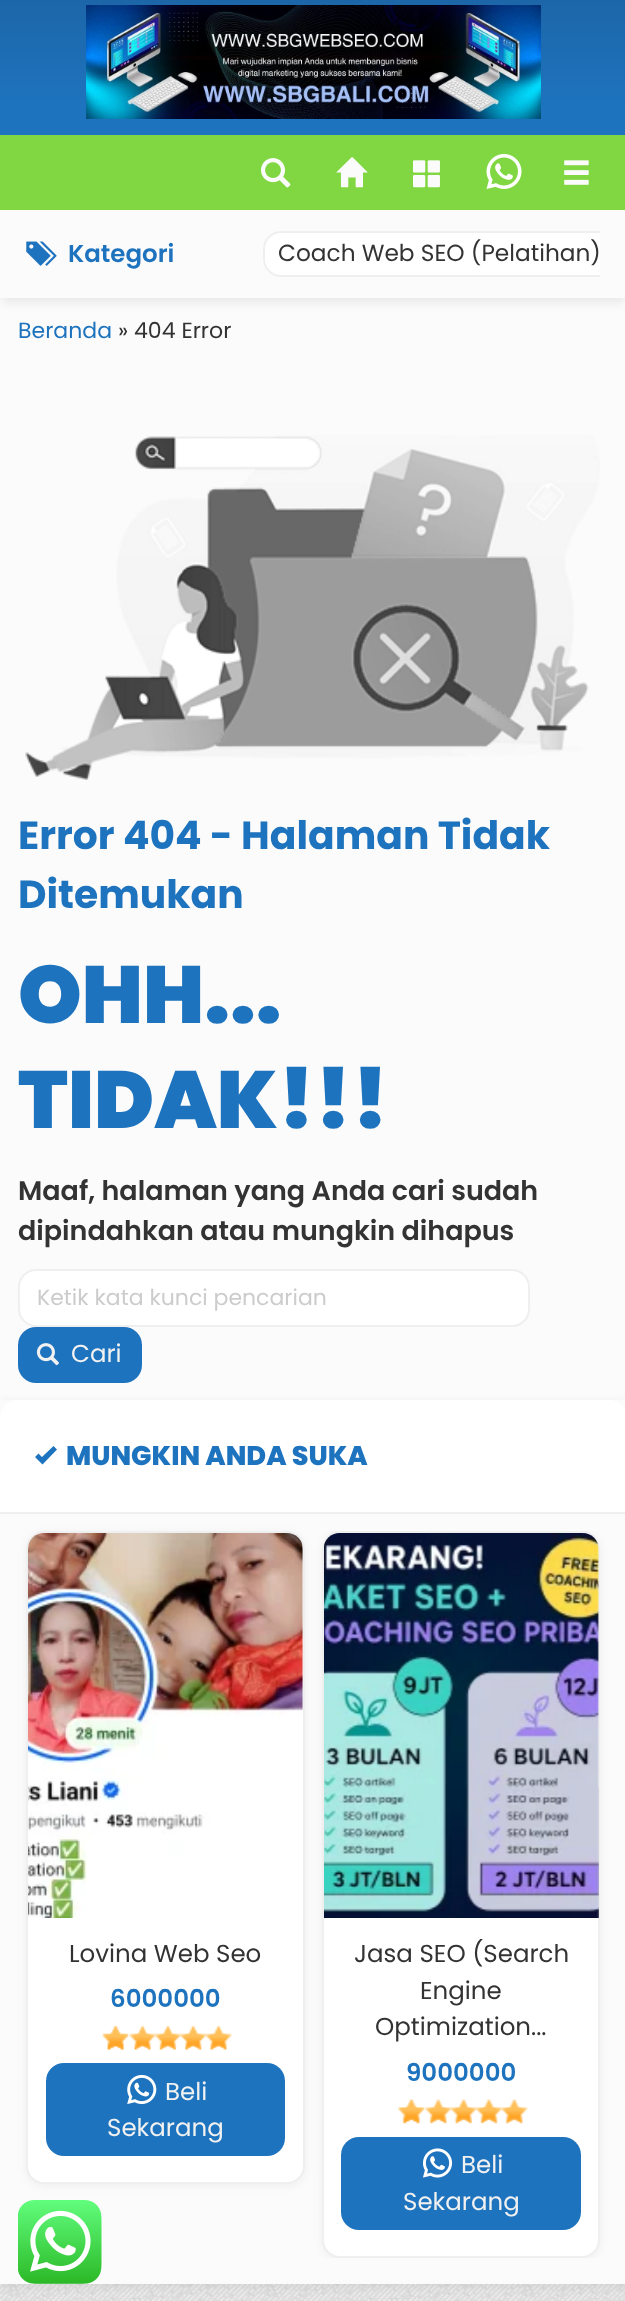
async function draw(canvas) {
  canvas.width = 625;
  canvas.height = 2301;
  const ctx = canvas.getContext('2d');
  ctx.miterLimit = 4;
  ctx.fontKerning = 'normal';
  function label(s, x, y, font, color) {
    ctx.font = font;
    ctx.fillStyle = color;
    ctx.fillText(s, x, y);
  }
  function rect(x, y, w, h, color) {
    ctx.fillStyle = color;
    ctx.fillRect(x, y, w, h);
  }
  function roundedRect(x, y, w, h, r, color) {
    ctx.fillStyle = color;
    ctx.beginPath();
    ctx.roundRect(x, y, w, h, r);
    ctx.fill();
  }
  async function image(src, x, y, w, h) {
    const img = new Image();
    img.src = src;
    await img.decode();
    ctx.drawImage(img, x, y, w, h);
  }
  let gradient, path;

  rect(0, 0, 625, 2301, '#f1f1f1');
  await image('assets/img1.png', 0, 2284, 625, 17);
  rect(0, 298, 625, 1102, '#fbfbfb');
  ctx.fillStyle = '#00000012';
  ctx.filter = 'blur(5px)';
  ctx.beginPath();
  ctx.rect(2, 9, 623, 294);
  ctx.fill();
  ctx.filter = 'none';
  rect(0, 210, 625, 88, '#fbfbfb');
  gradient = ctx.createLinearGradient(313, 0, 313, 210);
  gradient.addColorStop(0, '#1c66a8');
  gradient.addColorStop(0.5, '#1e73be');
  gradient.addColorStop(1, '#1e73be');
  ctx.fillStyle = gradient;
  ctx.fillRect(0, 0, 625, 135);
  await image('assets/img2.png', 86, 5, 455, 114);
  rect(0, 135, 625, 75, '#81d742');
  await image('assets/img3.png', 261, 158, 30, 30);
  await image('assets/img4.png', 336, 157, 32, 31);
  await image('assets/img5.png', 413, 160, 27, 28);
  await image('assets/img6.png', 486, 154, 36, 35);
  await image('assets/img7.png', 564, 160, 25, 25);
  await image('assets/img8.png', 26, 241, 31, 25);
  label('Kategori', 68, 262, '600 24.5px Poppins', '#1e73be');
  ctx.fillStyle = '#fff';
  ctx.beginPath();
  ctx.roundRect(263, 231, 337, 46, [18, 0, 0, 18]);
  ctx.fill();
  ctx.save();
  ctx.beginPath();
  ctx.rect(254, 210, 346, 88);
  ctx.clip();
  ctx.beginPath();
  ctx.roundRect(264, 232, 353, 44, 17);
  ctx.strokeStyle = '#efefef';
  ctx.lineWidth = 2;
  ctx.stroke();
  ctx.restore();
  label('Coach Web SEO (Pelatihan)', 278, 261, '23.25px Poppins', '#333');
  label('Beranda', 18, 338, '22px Poppins', '#1e73be');
  label('» 404 Error', 118, 338, '22px Poppins', '#333');
  await image('assets/img9.png', 25, 435, 575, 345);
  label('Error 404 - Halaman Tidak', 18, 849, 'bold 39.25px Poppins', '#1e73be');
  label('Ditemukan', 18, 908, 'bold 39.25px Poppins', '#1e73be');
  label('OHH...', 18, 1023, '900 81px Poppins', '#1e73be');
  label('TIDAK!!!', 18, 1128, '900 81px Poppins', '#1e73be');
  label('Maaf, halaman yang Anda cari sudah', 18, 1200, '600 27px Poppins', '#333');
  label('dipindahkan atau mungkin dihapus', 18, 1240, '600 27px Poppins', '#333');
  ctx.fillStyle = '#fff';
  ctx.beginPath();
  ctx.roundRect(19, 1270, 510, 56, 17);
  ctx.fill();
  ctx.strokeStyle = '#efefef';
  ctx.lineWidth = 2;
  ctx.stroke();
  label('Ketik kata kunci pencarian', 37, 1305, '22px Poppins', '#ccc');
  roundedRect(18, 1327, 124, 56, 18, '#1e73be');
  await image('assets/img10.png', 36, 1343, 23, 23);
  label('Cari', 71, 1362, '24.5px Poppins', '#f1f1f1');
  ctx.fillStyle = '#00000012';
  ctx.filter = 'blur(5px)';
  ctx.beginPath();
  ctx.rect(0, 1402, 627, 884);
  ctx.fill();
  ctx.filter = 'none';
  rect(0, 1400, 625, 884, '#fbfbfb');
  ctx.fillStyle = '#fff';
  path = new Path2D('M18 1400H609C619 1400 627 1408 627 1418V1514H0V1418C0 1408 8 1400 18 1400Z');
  ctx.fill(path);
  rect(0, 1512, 625, 2, '#efefef');
  ctx.fillStyle = '#1e73be';
  path = new Path2D('M53.5 1446L42 1457L38.5 1453.5L35 1457L42.5 1464.5L57 1449.5Z');
  ctx.fill(path);
  label('MUNGKIN ANDA SUKA', 66, 1465, '800 27px Poppins', '#1e73be');
  ctx.fillStyle = '#0000000d';
  ctx.filter = 'blur(5px)';
  ctx.beginPath();
  ctx.roundRect(26, 1533, 279, 653, 18);
  ctx.fill();
  ctx.filter = 'none';
  ctx.fillStyle = '#fff';
  ctx.beginPath();
  ctx.roundRect(27, 1532, 277, 651, 17);
  ctx.fill();
  ctx.stroke();
  await image('assets/img11.png', 28, 1533, 275, 385);
  label('Lovina Web Seo', 69, 1962, '24.5px Poppins', '#333');
  label('6000000', 110, 2007, '600 24.5px Poppins', '#1e73be');
  await image('assets/img12.png', 102, 2025, 130, 25);
  roundedRect(46, 2063, 239, 93, 18, '#1e73be');
  await image('assets/img13.png', 127, 2074, 30, 31);
  label('Beli', 165, 2100, '24.5px Poppins', '#f1f1f1');
  label('Sekarang', 107, 2136, '24.5px Poppins', '#f1f1f1');
  ctx.save();
  ctx.beginPath();
  ctx.rect(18, 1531, 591, 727);
  ctx.clip();
  ctx.fillStyle = '#0000000d';
  ctx.filter = 'blur(5px)';
  ctx.beginPath();
  ctx.roundRect(322, 1533, 278, 726, 18);
  ctx.fill();
  ctx.filter = 'none';
  ctx.restore();
  ctx.fillStyle = '#fff';
  ctx.beginPath();
  ctx.roundRect(323, 1532, 276, 725, 17);
  ctx.fill();
  ctx.stroke();
  await image('assets/img14.png', 324, 1533, 275, 385);
  label('Jasa SEO (Search', 354, 1962, '24.5px Poppins', '#333');
  label('Engine', 420, 1999, '24.5px Poppins', '#333');
  label('Optimization...', 375, 2035, '24.5px Poppins', '#333');
  label('9000000', 406, 2081, '600 24.5px Poppins', '#1e73be');
  await image('assets/img15.png', 397, 2099, 131, 25);
  roundedRect(341, 2137, 240, 93, 18, '#1e73be');
  await image('assets/img16.png', 423, 2148, 30, 30);
  label('Beli', 461, 2173, '24.5px Poppins', '#f1f1f1');
  label('Sekarang', 403, 2210, '24.5px Poppins', '#f1f1f1');
  await image('assets/img17.png', 18, 2200, 84, 84);
}

draw(document.querySelector('canvas'));
